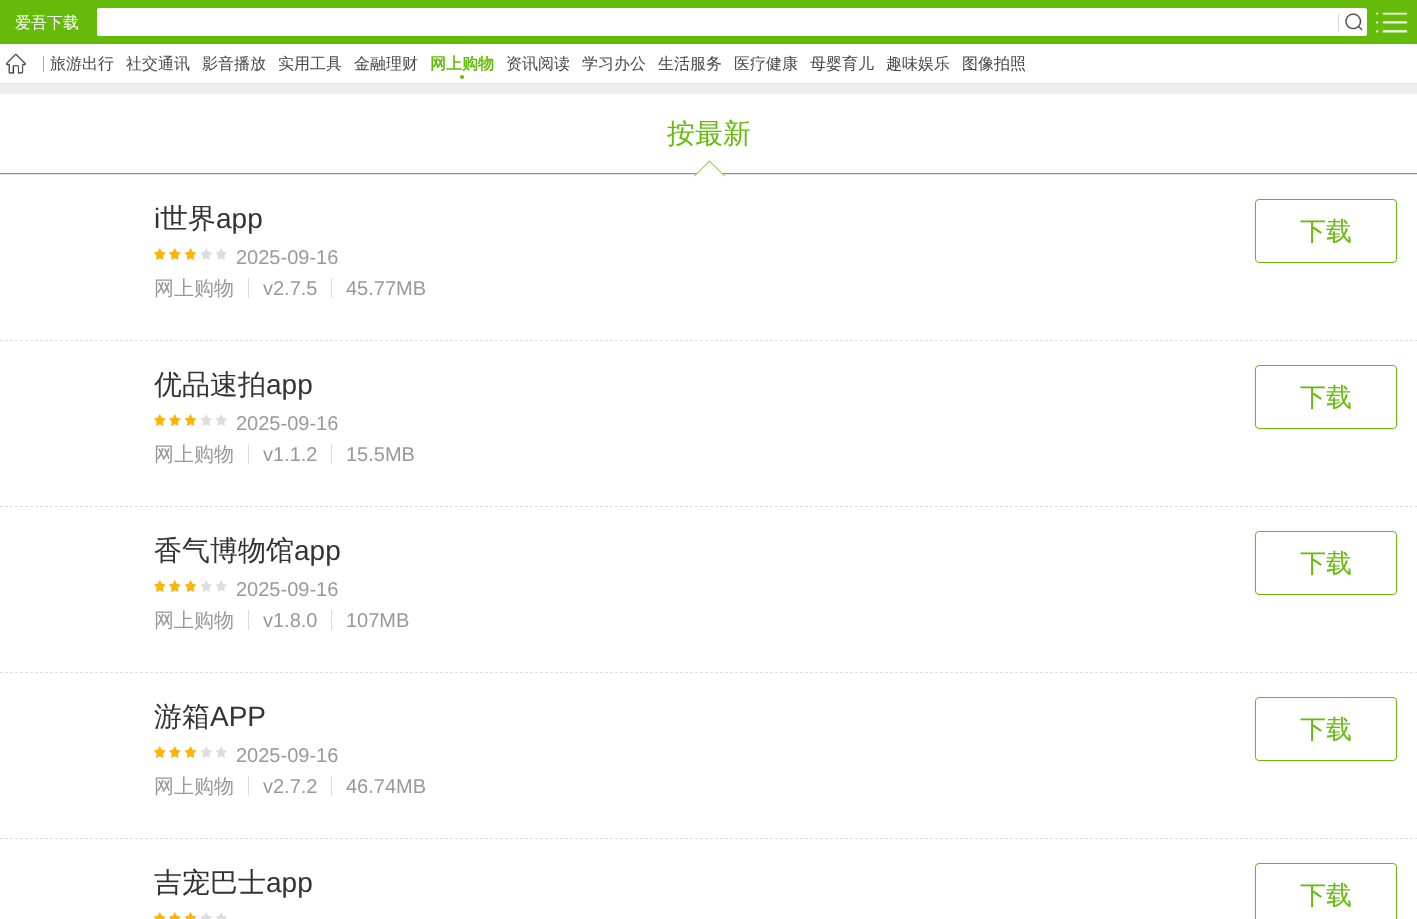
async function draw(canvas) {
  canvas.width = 1417;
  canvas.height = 919;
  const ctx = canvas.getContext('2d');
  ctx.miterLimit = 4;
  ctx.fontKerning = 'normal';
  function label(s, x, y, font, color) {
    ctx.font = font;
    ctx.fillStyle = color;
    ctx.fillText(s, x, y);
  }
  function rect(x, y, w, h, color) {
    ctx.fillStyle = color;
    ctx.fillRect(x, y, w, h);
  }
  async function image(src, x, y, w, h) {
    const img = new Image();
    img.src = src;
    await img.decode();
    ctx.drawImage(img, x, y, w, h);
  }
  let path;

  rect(0, 0, 1417, 919, '#eee');
  rect(0, 0, 1417, 44, '#65bb0a');
  label('爱吾下载', 15, 28, '500 16px WenQuanYi Zen Hei', '#fff');
  ctx.beginPath();
  ctx.roundRect(97, 8, 1242, 28, [2, 0, 0, 2]);
  ctx.fill();
  rect(1338, 14, 1, 17, '#d9d9d9');
  ctx.fillStyle = '#fff';
  ctx.beginPath();
  ctx.roundRect(1339, 8, 28, 28, [0, 3, 3, 0]);
  ctx.fill();
  await image('assets/img1.png', 1345, 8, 22, 28);
  await image('assets/img2.png', 1376, 12, 32, 21);
  rect(0, 44, 1417, 39, '#fff');
  rect(0, 83, 1417, 1, '#e4e4e4');
  await image('assets/img3.png', 6, 53, 20, 21);
  rect(43, 56, 1, 16, '#aaa');
  label('旅游出行', 50, 69, '500 16px WenQuanYi Zen Hei', '#474747');
  label('社交通讯', 126, 69, '500 16px WenQuanYi Zen Hei', '#474747');
  label('影音播放', 202, 69, '500 16px WenQuanYi Zen Hei', '#474747');
  label('实用工具', 278, 69, '500 16px WenQuanYi Zen Hei', '#474747');
  label('金融理财', 354, 69, '500 16px WenQuanYi Zen Hei', '#474747');
  label('网上购物', 430, 69, 'bold 16px WenQuanYi Zen Hei', '#65bb0a');
  ctx.beginPath();
  ctx.arc(462, 77, 2, 0, 2 * Math.PI);
  ctx.fill();
  label('资讯阅读', 506, 69, '500 16px WenQuanYi Zen Hei', '#474747');
  label('学习办公', 582, 69, '500 16px WenQuanYi Zen Hei', '#474747');
  label('生活服务', 658, 69, '500 16px WenQuanYi Zen Hei', '#474747');
  label('医疗健康', 734, 69, '500 16px WenQuanYi Zen Hei', '#474747');
  label('母婴育儿', 810, 69, '500 16px WenQuanYi Zen Hei', '#474747');
  label('趣味娱乐', 886, 69, '500 16px WenQuanYi Zen Hei', '#474747');
  label('图像拍照', 962, 69, '500 16px WenQuanYi Zen Hei', '#474747');
  rect(0, 94, 1417, 79, '#fff');
  rect(0, 174, 1417, 1, '#e4e4e4');
  rect(0, 173, 1417, 1, '#65bb0a');
  label('按最新', 667, 143, '500 28px WenQuanYi Zen Hei', '#65bb0a');
  rect(0, 175, 1417, 744, '#fff');
  path = new Path2D('M709.5 160.5L725 176L709.5 191.5L694 176Z');
  ctx.fill(path);
  ctx.fillStyle = '#65bb0a';
  path = new Path2D('M709.5 160.5L725 176L724.5 176.5L709 161Z');
  ctx.fill(path);
  ctx.fillStyle = '#fff';
  path = new Path2D('M724.5 175.5L725 176L709.5 191.5L709 191Z');
  ctx.fill(path);
  ctx.fillStyle = '#65bb0a';
  path = new Path2D('M709.5 160.5L710 161L694.5 176.5L694 176Z');
  ctx.fill(path);
  path = new Path2D('M0 340.5H1417');
  ctx.strokeStyle = '#ddd';
  ctx.setLineDash([3, 2]);
  ctx.stroke(path);
  label('i', 154, 228, '28px Liberation Sans', '#333');
  label('世界', 160, 228, '500 28px WenQuanYi Zen Hei', '#333');
  label('app', 216, 228, '28px Liberation Sans', '#333');
  await image('assets/img4.png', 154, 248, 73, 12);
  await image('assets/img5.png', 154, 248, 43, 12);
  label('2025-09-16', 236, 264, '20px Liberation Sans', '#999');
  label('网上购物', 154, 295, '500 20px WenQuanYi Zen Hei', '#999');
  rect(248, 278, 1, 20, '#ddd');
  label('v2.7.5', 263, 295, '20px Liberation Sans', '#999');
  rect(331, 278, 1, 20, '#ddd');
  label('45.77MB', 346, 295, '20px Liberation Sans', '#999');
  ctx.beginPath();
  ctx.roundRect(1255.5, 199.5, 141, 63, 3.5);
  ctx.strokeStyle = '#65bb0a';
  ctx.setLineDash([]);
  ctx.stroke();
  label('下载', 1300, 240, '500 26px WenQuanYi Zen Hei', '#65bb0a');
  path = new Path2D('M0 506.5H1417');
  ctx.strokeStyle = '#ddd';
  ctx.setLineDash([3, 2]);
  ctx.stroke(path);
  label('优品速拍', 154, 394, '500 28px WenQuanYi Zen Hei', '#333');
  label('app', 266, 394, '28px Liberation Sans', '#333');
  await image('assets/img4.png', 154, 414, 73, 12);
  await image('assets/img5.png', 154, 414, 43, 12);
  label('2025-09-16', 236, 430, '20px Liberation Sans', '#999');
  label('网上购物', 154, 461, '500 20px WenQuanYi Zen Hei', '#999');
  rect(248, 444, 1, 20, '#ddd');
  label('v1.1.2', 263, 461, '20px Liberation Sans', '#999');
  rect(331, 444, 1, 20, '#ddd');
  label('15.5MB', 346, 461, '20px Liberation Sans', '#999');
  ctx.beginPath();
  ctx.roundRect(1255.5, 365.5, 141, 63, 3.5);
  ctx.strokeStyle = '#65bb0a';
  ctx.setLineDash([]);
  ctx.stroke();
  label('下载', 1300, 406, '500 26px WenQuanYi Zen Hei', '#65bb0a');
  path = new Path2D('M0 672.5H1417');
  ctx.strokeStyle = '#ddd';
  ctx.setLineDash([3, 2]);
  ctx.stroke(path);
  label('香气博物馆', 154, 560, '500 28px WenQuanYi Zen Hei', '#333');
  label('app', 294, 560, '28px Liberation Sans', '#333');
  await image('assets/img4.png', 154, 580, 73, 12);
  await image('assets/img5.png', 154, 580, 43, 12);
  label('2025-09-16', 236, 596, '20px Liberation Sans', '#999');
  label('网上购物', 154, 627, '500 20px WenQuanYi Zen Hei', '#999');
  rect(248, 610, 1, 20, '#ddd');
  label('v1.8.0', 263, 627, '20px Liberation Sans', '#999');
  rect(331, 610, 1, 20, '#ddd');
  label('107MB', 346, 627, '20px Liberation Sans', '#999');
  ctx.beginPath();
  ctx.roundRect(1255.5, 531.5, 141, 63, 3.5);
  ctx.strokeStyle = '#65bb0a';
  ctx.setLineDash([]);
  ctx.stroke();
  label('下载', 1300, 572, '500 26px WenQuanYi Zen Hei', '#65bb0a');
  path = new Path2D('M0 838.5H1417');
  ctx.strokeStyle = '#ddd';
  ctx.setLineDash([3, 2]);
  ctx.stroke(path);
  label('游箱', 154, 726, '500 28px WenQuanYi Zen Hei', '#333');
  label('APP', 210, 726, '28px Liberation Sans', '#333');
  await image('assets/img4.png', 154, 746, 73, 12);
  await image('assets/img5.png', 154, 746, 43, 12);
  label('2025-09-16', 236, 762, '20px Liberation Sans', '#999');
  label('网上购物', 154, 793, '500 20px WenQuanYi Zen Hei', '#999');
  rect(248, 776, 1, 20, '#ddd');
  label('v2.7.2', 263, 793, '20px Liberation Sans', '#999');
  rect(331, 776, 1, 20, '#ddd');
  label('46.74MB', 346, 793, '20px Liberation Sans', '#999');
  ctx.beginPath();
  ctx.roundRect(1255.5, 697.5, 141, 63, 3.5);
  ctx.strokeStyle = '#65bb0a';
  ctx.setLineDash([]);
  ctx.stroke();
  label('下载', 1300, 738, '500 26px WenQuanYi Zen Hei', '#65bb0a');
  label('吉宠巴士', 154, 892, '500 28px WenQuanYi Zen Hei', '#333');
  label('app', 266, 892, '28px Liberation Sans', '#333');
  await image('assets/img6.png', 154, 912, 73, 7);
  await image('assets/img7.png', 154, 912, 43, 7);
  ctx.beginPath();
  ctx.roundRect(1255.5, 863.5, 141, 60, 3.5);
  ctx.stroke();
  label('下载', 1300, 904, '500 26px WenQuanYi Zen Hei', '#65bb0a');
}

draw(document.querySelector('canvas'));
